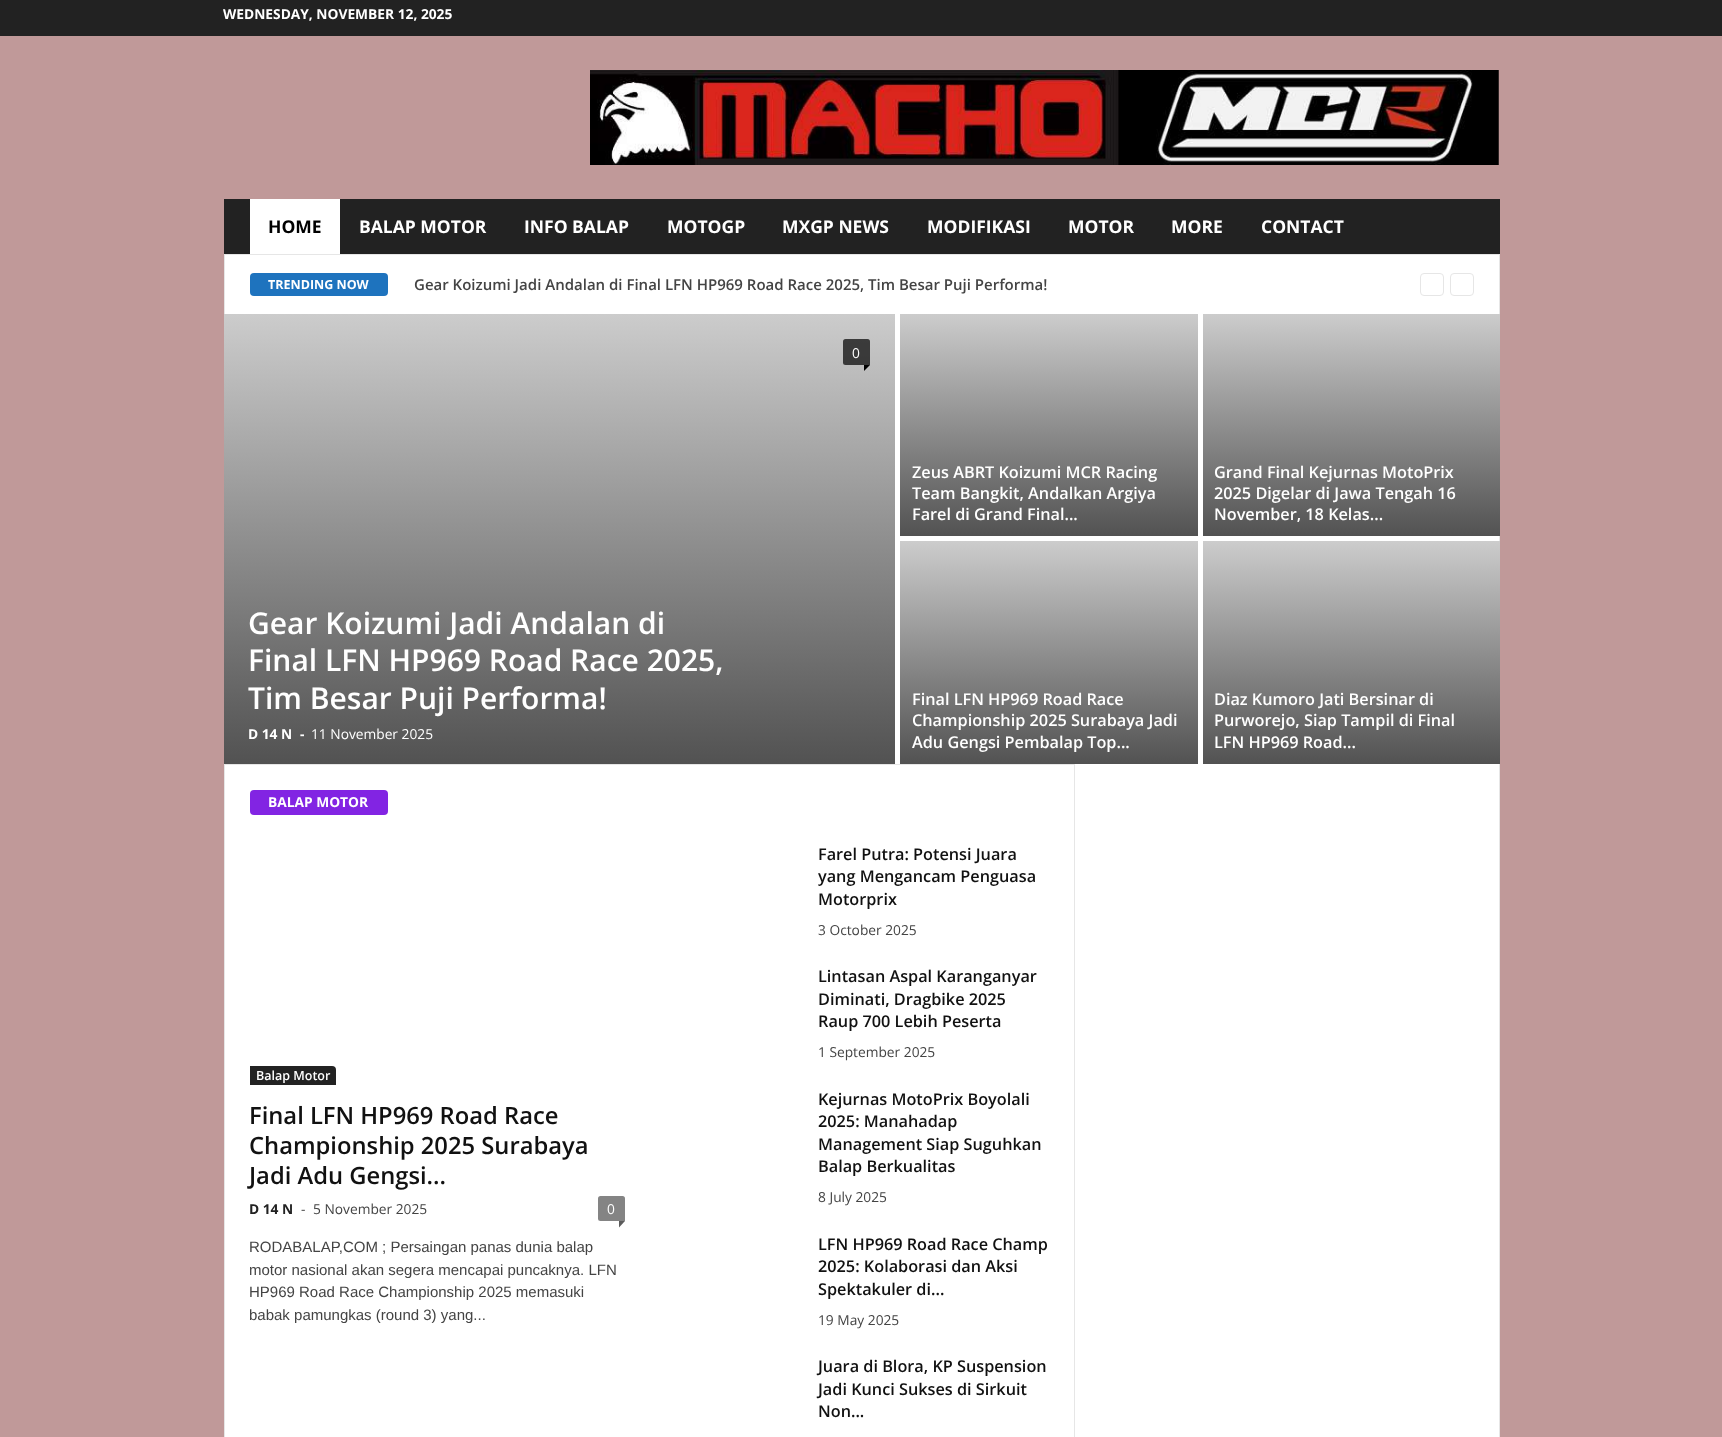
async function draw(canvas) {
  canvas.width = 1722;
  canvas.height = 1437;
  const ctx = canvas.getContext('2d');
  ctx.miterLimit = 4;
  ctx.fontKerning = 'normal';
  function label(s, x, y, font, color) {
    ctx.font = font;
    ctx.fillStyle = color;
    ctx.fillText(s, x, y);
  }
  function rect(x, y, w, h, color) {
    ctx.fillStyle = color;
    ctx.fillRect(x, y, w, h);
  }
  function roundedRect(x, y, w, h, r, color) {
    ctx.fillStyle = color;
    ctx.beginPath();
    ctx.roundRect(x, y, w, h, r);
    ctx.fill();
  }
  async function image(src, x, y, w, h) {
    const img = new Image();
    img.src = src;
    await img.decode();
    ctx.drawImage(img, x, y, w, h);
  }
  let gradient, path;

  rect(0, 0, 1722, 1437, '#c09999');
  rect(0, 0, 1722, 36, '#222');
  label('WEDNESDAY, NOVEMBER 12, 2025', 223, 19, 'bold 13.75px Open Sans', '#fff');
  await image('assets/img1.png', 590, 70, 909, 95);
  rect(224, 199, 1276, 55, '#222');
  rect(250, 199, 90, 55, '#fff');
  label('HOME', 268, 233, 'bold 17.5px Open Sans', '#000');
  label('BALAP MOTOR', 359, 233, 'bold 17.5px Open Sans', '#fff');
  label('INFO BALAP', 524, 233, 'bold 17.5px Open Sans', '#fff');
  label('MOTOGP', 667, 233, 'bold 17.5px Open Sans', '#fff');
  label('MXGP NEWS', 782, 233, 'bold 17.5px Open Sans', '#fff');
  label('MODIFIKASI', 927, 233, 'bold 17.5px Open Sans', '#fff');
  label('MOTOR', 1068, 233, 'bold 17.5px Open Sans', '#fff');
  label('MORE', 1171, 233, 'bold 17.5px Open Sans', '#fff');
  label('CONTACT', 1261, 233, 'bold 17.5px Open Sans', '#fff');
  rect(225, 255, 1274, 1182, '#fff');
  rect(224, 254, 1, 1183, '#e6e6e6');
  rect(225, 254, 1274, 1, '#e6e6e6');
  roundedRect(250, 273, 138, 23, 4, '#1e73be');
  label('TRENDING NOW', 268, 289, 'bold 12.5px Open Sans', '#fff');
  label('Gear Koizumi Jadi Andalan di Final LFN HP969 Road Race 2025, Tim Besar Puji Performa!', 414, 290, '600 15px Open Sans', '#444');
  ctx.beginPath();
  ctx.roundRect(1420.5, 273.5, 23, 22, 3.5);
  ctx.strokeStyle = '#e6e6e6';
  ctx.stroke();
  ctx.beginPath();
  ctx.roundRect(1450.5, 273.5, 23, 22, 3.5);
  ctx.stroke();
  gradient = ctx.createLinearGradient(559, 314, 559, 764);
  gradient.addColorStop(0, '#ccc');
  gradient.addColorStop(1, '#525252');
  ctx.fillStyle = gradient;
  ctx.fillRect(224, 314, 671, 450);
  ctx.fillStyle = '#000000b3';
  ctx.beginPath();
  ctx.roundRect(843, 339, 27, 26, [2.5, 2.5, 0, 2.5]);
  ctx.fill();
  label('0', 852, 358, '13.75px Open Sans', '#fff');
  ctx.fillStyle = '#000';
  path = new Path2D('M864 365H870L864 371Z');
  ctx.fill(path);
  label('Gear Koizumi Jadi Andalan di', 248, 634, '600 30px Open Sans', '#fff');
  label('Final LFN HP969 Road Race 2025,', 248, 671, '600 30px Open Sans', '#fff');
  label('Tim Besar Puji Performa!', 248, 709, '600 30px Open Sans', '#fff');
  label('D 14 N', 248, 739, 'bold 13.75px Open Sans', '#fff');
  label('-', 300, 739, 'bold 13.75px Open Sans', '#fff');
  label('11 November 2025', 311, 739, '13.75px Open Sans', '#fff');
  gradient = ctx.createLinearGradient(1049, 314, 1049, 536);
  gradient.addColorStop(0, '#ccc');
  gradient.addColorStop(1, '#525252');
  ctx.fillStyle = gradient;
  ctx.fillRect(900, 314, 298, 222);
  label('Zeus ABRT Koizumi MCR Racing', 912, 478, '600 16.25px Open Sans', '#fff');
  label('Team Bangkit, Andalkan Argiya', 912, 499, '600 16.25px Open Sans', '#fff');
  label('Farel di Grand Final...', 912, 520, '600 16.25px Open Sans', '#fff');
  rect(1499, 254, 1, 1183, '#e6e6e6');
  gradient = ctx.createLinearGradient(1351, 314, 1351, 536);
  gradient.addColorStop(0, '#ccc');
  gradient.addColorStop(1, '#525252');
  ctx.fillStyle = gradient;
  ctx.fillRect(1203, 314, 297, 222);
  label('Grand Final Kejurnas MotoPrix', 1214, 478, '600 16.25px Open Sans', '#fff');
  label('2025 Digelar di Jawa Tengah 16', 1214, 499, '600 16.25px Open Sans', '#fff');
  label('November, 18 Kelas...', 1214, 520, '600 16.25px Open Sans', '#fff');
  gradient = ctx.createLinearGradient(1049, 541, 1049, 764);
  gradient.addColorStop(0, '#ccc');
  gradient.addColorStop(1, '#525252');
  ctx.fillStyle = gradient;
  ctx.fillRect(900, 541, 298, 223);
  label('Final LFN HP969 Road Race', 912, 705, '600 16.25px Open Sans', '#fff');
  label('Championship 2025 Surabaya Jadi', 912, 726, '600 16.25px Open Sans', '#fff');
  label('Adu Gengsi Pembalap Top...', 912, 748, '600 16.25px Open Sans', '#fff');
  gradient = ctx.createLinearGradient(1351, 541, 1351, 764);
  gradient.addColorStop(0, '#ccc');
  gradient.addColorStop(1, '#525252');
  ctx.fillStyle = gradient;
  ctx.fillRect(1203, 541, 297, 223);
  label('Diaz Kumoro Jati Bersinar di', 1214, 705, '600 16.25px Open Sans', '#fff');
  label('Purworejo, Siap Tampil di Final', 1214, 726, '600 16.25px Open Sans', '#fff');
  label('LFN HP969 Road...', 1214, 748, '600 16.25px Open Sans', '#fff');
  rect(225, 764, 849, 1, '#e6e6e6');
  roundedRect(250, 790, 138, 25, 4, '#8224e3');
  label('BALAP MOTOR', 268, 807, 'bold 13.75px Open Sans', '#fff');
  ctx.fillStyle = '#222';
  ctx.beginPath();
  ctx.roundRect(250, 1066, 86, 19, [0, 4, 0, 0]);
  ctx.fill();
  label('Balap Motor', 256, 1080, '600 12.5px Open Sans', '#fff');
  label('Final LFN HP969 Road Race', 249, 1124, '600 23.75px Open Sans', '#111');
  label('Championship 2025 Surabaya', 249, 1154, '600 23.75px Open Sans', '#111');
  label('Jadi Adu Gengsi...', 249, 1184, '600 23.75px Open Sans', '#111');
  label('D 14 N', 249, 1214, 'bold 13.75px Open Sans', '#222');
  label('-', 301, 1214, '13.75px Open Sans', '#444');
  label('5 November 2025', 313, 1214, '13.75px Open Sans', '#444');
  ctx.fillStyle = '#848484';
  ctx.beginPath();
  ctx.roundRect(598, 1196, 27, 25, [2.5, 2.5, 0, 2.5]);
  ctx.fill();
  label('0', 607, 1214, '13.75px Open Sans', '#fff');
  ctx.fillStyle = '#5b5b5b';
  path = new Path2D('M619 1221H625L619 1227.5Z');
  ctx.fill(path);
  label('RODABALAP,COM ; Persaingan panas dunia balap', 249, 1252, '15px Liberation Sans', '#444');
  label('motor nasional akan segera mencapai puncaknya. LFN', 249, 1275, '15px Liberation Sans', '#444');
  label('HP969 Road Race Championship 2025 memasuki', 249, 1297, '15px Liberation Sans', '#444');
  label('babak pamungkas (round 3) yang...', 249, 1320, '15px Liberation Sans', '#444');
  label('Farel Putra: Potensi Juara', 818, 860, '600 16.25px Open Sans', '#111');
  label('yang Mengancam Penguasa', 818, 882, '600 16.25px Open Sans', '#111');
  label('Motorprix', 818, 905, '600 16.25px Open Sans', '#111');
  label('3 October 2025', 818, 935, '13.75px Open Sans', '#444');
  label('Lintasan Aspal Karanganyar', 818, 982, '600 16.25px Open Sans', '#111');
  label('Diminati, Dragbike 2025', 818, 1005, '600 16.25px Open Sans', '#111');
  label('Raup 700 Lebih Peserta', 818, 1027, '600 16.25px Open Sans', '#111');
  label('1 September 2025', 818, 1057, '13.75px Open Sans', '#444');
  label('Kejurnas MotoPrix Boyolali', 818, 1105, '600 16.25px Open Sans', '#111');
  label('2025: Manahadap', 818, 1127, '600 16.25px Open Sans', '#111');
  label('Management Siap Suguhkan', 818, 1150, '600 16.25px Open Sans', '#111');
  label('Balap Berkualitas', 818, 1172, '600 16.25px Open Sans', '#111');
  label('8 July 2025', 818, 1202, '13.75px Open Sans', '#444');
  label('LFN HP969 Road Race Champ', 818, 1250, '600 16.25px Open Sans', '#111');
  label('2025: Kolaborasi dan Aksi', 818, 1272, '600 16.25px Open Sans', '#111');
  label('Spektakuler di...', 818, 1295, '600 16.25px Open Sans', '#111');
  label('19 May 2025', 818, 1325, '13.75px Open Sans', '#444');
  label('Juara di Blora, KP Suspension', 818, 1372, '600 16.25px Open Sans', '#111');
  label('Jadi Kunci Sukses di Sirkuit', 818, 1395, '600 16.25px Open Sans', '#111');
  label('Non...', 818, 1417, '600 16.25px Open Sans', '#111');
  rect(1074, 764, 1, 673, '#e6e6e6');
}

draw(document.querySelector('canvas'));
